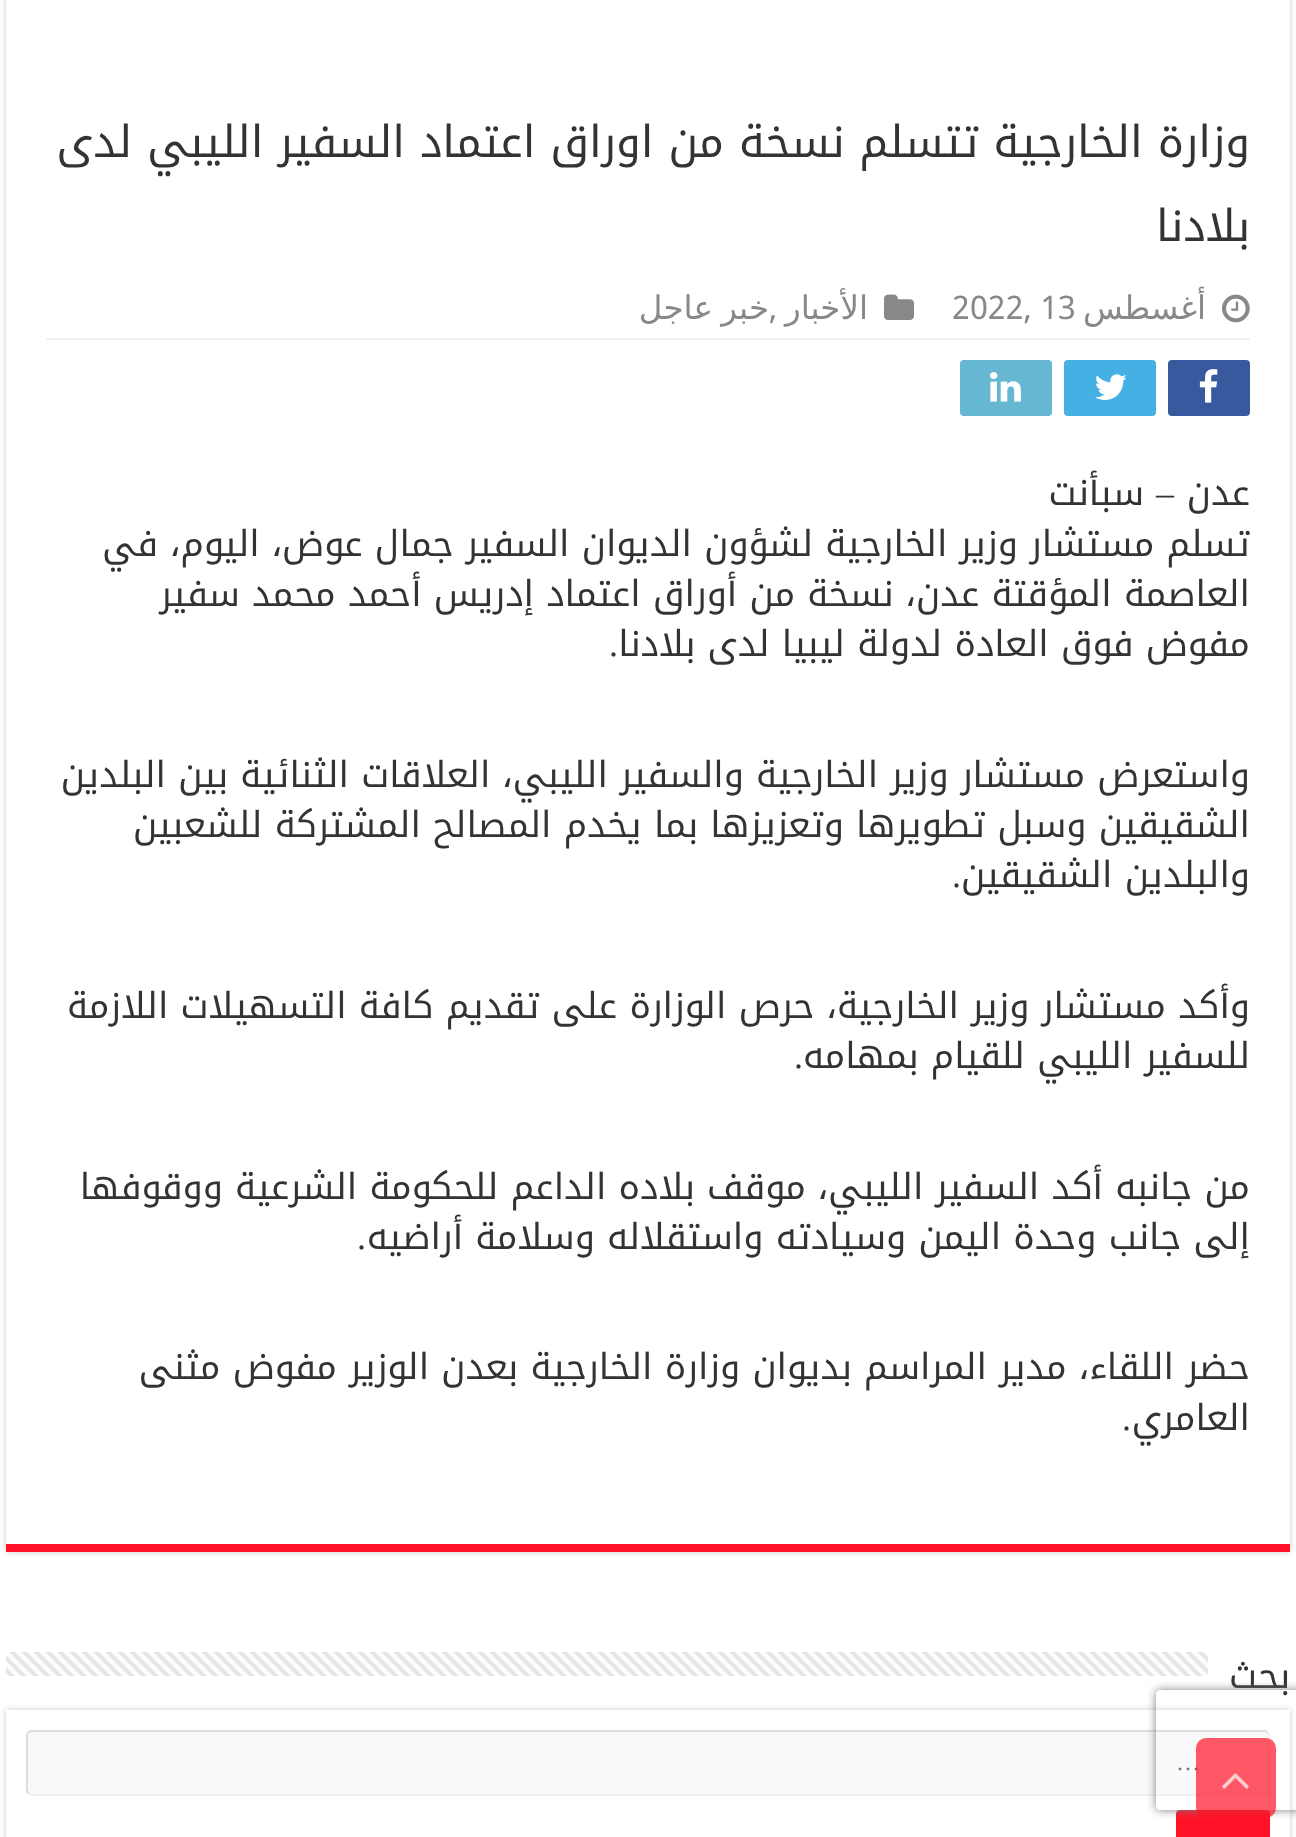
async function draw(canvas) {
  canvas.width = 1296;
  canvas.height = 1837;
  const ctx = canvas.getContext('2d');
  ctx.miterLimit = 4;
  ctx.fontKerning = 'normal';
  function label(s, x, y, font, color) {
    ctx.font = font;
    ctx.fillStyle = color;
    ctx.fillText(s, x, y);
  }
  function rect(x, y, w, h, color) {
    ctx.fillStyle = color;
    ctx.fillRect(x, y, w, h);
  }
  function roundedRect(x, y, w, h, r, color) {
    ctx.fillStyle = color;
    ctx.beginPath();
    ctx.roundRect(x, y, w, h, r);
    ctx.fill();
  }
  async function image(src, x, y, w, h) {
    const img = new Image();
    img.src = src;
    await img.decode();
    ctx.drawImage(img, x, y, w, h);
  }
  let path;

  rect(0, 0, 1296, 1837, '#fff');
  ctx.save();
  path = new Path2D('M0 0H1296V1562H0ZM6-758H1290V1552H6Z');
  ctx.clip(path, 'evenodd');
  ctx.fillStyle = '#cacaca';
  ctx.filter = 'blur(3px)';
  ctx.beginPath();
  ctx.rect(6, -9, 1284, 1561);
  ctx.fill();
  ctx.filter = 'none';
  ctx.restore();
  rect(6, 1544, 1284, 8, '#ff1226');
  ctx.direction = 'rtl';
  label('وزارة الخارجية تتسلم نسخة من اوراق اعتماد السفير الليبي لدى', 1250, 157, '44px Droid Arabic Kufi', '#333');
  label('بلادنا', 1250, 241, '44px Droid Arabic Kufi', '#333');
  rect(46, 338, 1204, 2, '#f2f2f2');
  await image('assets/img1.png', 1222, 294, 28, 29);
  label('أغسطس', 1206, 319, '32.5px DejaVu Sans', '#888');
  ctx.direction = 'ltr';
  label('2022, 13', 952, 319, '32.5px Droid Sans', '#888');
  await image('assets/img2.png', 884, 294, 30, 26);
  ctx.direction = 'rtl';
  label('الأخبار', 868, 319, '32.5px DejaVu Sans', '#888');
  ctx.direction = 'ltr';
  label(',', 769, 319, '32.5px Droid Sans', '#888');
  ctx.wordSpacing = '-2px';
  ctx.direction = 'rtl';
  label('خبر عاجل', 769, 319, '32.5px DejaVu Sans', '#888');
  roundedRect(1168, 360, 82, 56, 4, '#39599f');
  await image('assets/img3.png', 1199, 369, 19, 34);
  roundedRect(1064, 360, 92, 56, 4, '#45b0e3');
  await image('assets/img4.png', 1095, 374, 32, 26);
  roundedRect(960, 360, 92, 56, 4, '#65b7d2');
  await image('assets/img5.png', 990, 372, 31, 30);
  ctx.wordSpacing = '0px';
  label('عدن', 1250, 505, '36px Droid Arabic Kufi', '#333');
  label('–', 1174, 505, '36px Liberation Serif', '#333');
  label('سبأنت', 1144, 505, '36px Droid Arabic Kufi', '#333');
  label('تسلم مستشار وزير الخارجية لشؤون الديوان السفير جمال عوض، اليوم، في', 1250, 556, '36px Droid Arabic Kufi', '#333');
  label('العاصمة المؤقتة عدن، نسخة من أوراق اعتماد إدريس أحمد محمد سفير', 1250, 606, '36px Droid Arabic Kufi', '#333');
  label('مفوض فوق العادة لدولة ليبيا لدى بلادنا', 1250, 656, '36px Droid Arabic Kufi', '#333');
  label('.', 618, 656, '36px Liberation Serif', '#333');
  label('واستعرض مستشار وزير الخارجية والسفير الليبي، العلاقات الثنائية بين البلدين', 1250, 787, '36px Droid Arabic Kufi', '#333');
  label('الشقيقين وسبل تطويرها وتعزيزها بما يخدم المصالح المشتركة للشعبين', 1250, 837, '36px Droid Arabic Kufi', '#333');
  label('والبلدين الشقيقين', 1250, 887, '36px Droid Arabic Kufi', '#333');
  label('.', 961, 887, '36px Liberation Serif', '#333');
  label('وأكد مستشار وزير الخارجية، حرص الوزارة على تقديم كافة التسهيلات اللازمة', 1250, 1018, '36px Droid Arabic Kufi', '#333');
  label('للسفير الليبي للقيام بمهامه', 1250, 1068, '36px Droid Arabic Kufi', '#333');
  label('.', 803, 1068, '36px Liberation Serif', '#333');
  label('من جانبه أكد السفير الليبي، موقف بلاده الداعم للحكومة الشرعية ووقوفها', 1250, 1199, '36px Droid Arabic Kufi', '#333');
  label('إلى جانب وحدة اليمن وسيادته واستقلاله وسلامة أراضيه', 1250, 1249, '36px Droid Arabic Kufi', '#333');
  label('.', 366, 1249, '36px Liberation Serif', '#333');
  label('حضر اللقاء، مدير المراسم بديوان وزارة الخارجية بعدن الوزير مفوض مثنى', 1250, 1379, '36px Droid Arabic Kufi', '#333');
  label('العامري', 1250, 1430, '36px Droid Arabic Kufi', '#333');
  label('.', 1131, 1430, '36px Liberation Serif', '#333');
  label('بحث', 1290, 1688, '36px Droid Arabic Kufi', '#333');
  await image('assets/img6.png', 6, 1652, 1202, 24);
  ctx.save();
  path = new Path2D('M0 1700H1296V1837H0ZM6 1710H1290V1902H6Z');
  ctx.clip(path, 'evenodd');
  ctx.fillStyle = '#cacaca';
  ctx.filter = 'blur(3px)';
  ctx.beginPath();
  ctx.rect(6, 1710, 1284, 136);
  ctx.fill();
  ctx.filter = 'none';
  ctx.restore();
  roundedRect(26, 1730, 1244, 66, 6, '#f9f9f9');
  path = new Path2D('M1267.5 1732.5C1270.5 1735.5 1269 1742.5 1269 1745V1790C1269 1792.5 1267 1794.5 1264.5 1795H30.5L28.5 1793.5');
  ctx.strokeStyle = '#f1f1f1';
  ctx.lineWidth = 2;
  ctx.stroke(path);
  path = new Path2D('M28.5 1793.5C25.5 1790.5 27 1783.5 27 1781V1736C27 1733.5 29 1731.5 31.5 1731H1265.5L1267.5 1732.5');
  ctx.strokeStyle = '#ddd';
  ctx.stroke(path);
  label('…', 1200, 1770, '24px Liberation Serif', '#757575');
  roundedRect(1176, 1810, 94, 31, 4, '#ff1226');
  ctx.save();
  path = new Path2D('M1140 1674H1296V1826H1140ZM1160 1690H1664C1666 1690 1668 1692 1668 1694V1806C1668 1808 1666 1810 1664 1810H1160C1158 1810 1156 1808 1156 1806V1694C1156 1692 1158 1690 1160 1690Z');
  ctx.clip(path, 'evenodd');
  ctx.fillStyle = '#808080';
  ctx.filter = 'blur(5px)';
  ctx.beginPath();
  ctx.roundRect(1156, 1690, 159, 120, 4);
  ctx.fill();
  ctx.filter = 'none';
  ctx.restore();
  roundedRect(1196, 1738, 80, 80, 10, '#ff1226b3');
  await image('assets/img7.png', 1222, 1773, 27, 16);
}

draw(document.querySelector('canvas'));
